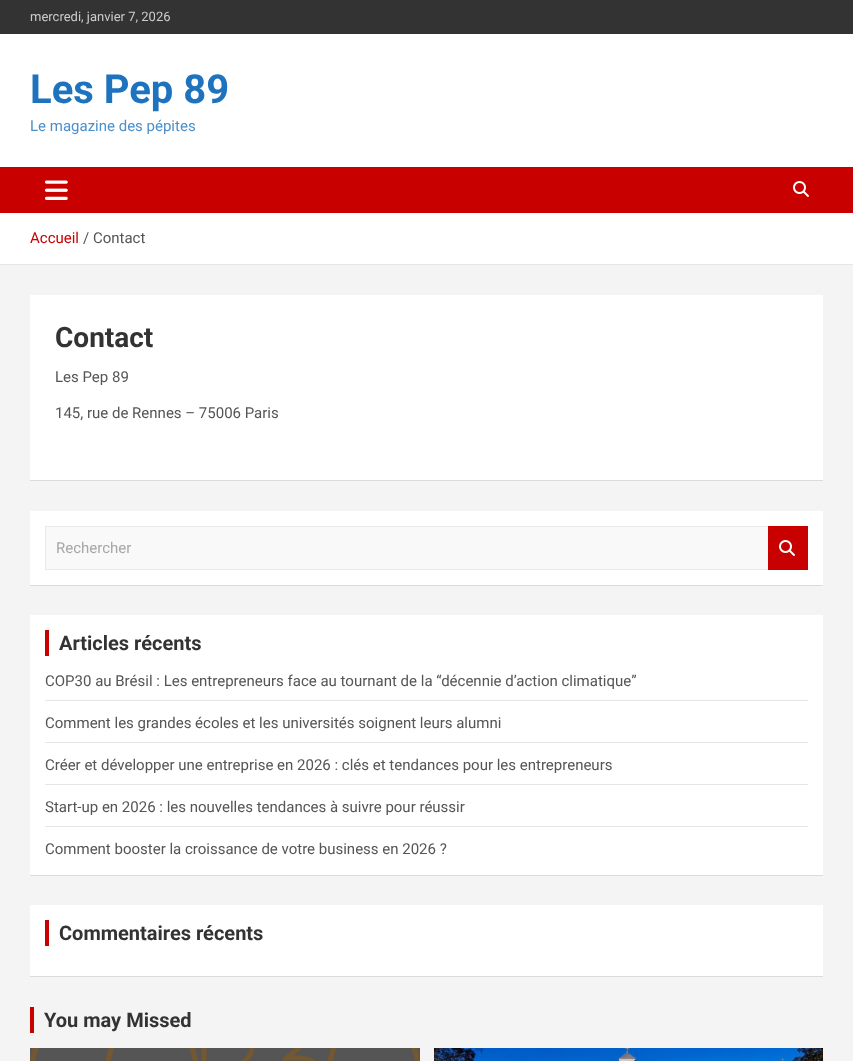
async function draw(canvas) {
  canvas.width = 853;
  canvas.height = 1061;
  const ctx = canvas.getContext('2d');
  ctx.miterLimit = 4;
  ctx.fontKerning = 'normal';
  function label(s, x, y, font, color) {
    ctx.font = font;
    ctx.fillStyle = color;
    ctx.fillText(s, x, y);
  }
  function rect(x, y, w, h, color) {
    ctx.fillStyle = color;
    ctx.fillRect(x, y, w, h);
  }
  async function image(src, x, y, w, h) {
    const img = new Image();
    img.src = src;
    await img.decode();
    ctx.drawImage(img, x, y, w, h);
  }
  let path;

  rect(0, 0, 853, 1061, '#f4f4f4');
  rect(0, 0, 853, 34, '#333');
  label('mercredi, janvier 7, 2026', 30, 21, '13px Roboto', '#ccc');
  rect(0, 34, 853, 133, '#fff');
  label('Les Pep 89', 30, 103, 'bold 40px Roboto', '#1e73be');
  label('Le magazine des pépites', 30, 131, '15px Roboto', '#4b8fcb');
  rect(0, 167, 853, 46, '#c80000');
  await image('assets/img1.png', 45, 180, 23, 20);
  await image('assets/img2.png', 793, 181, 16, 16);
  rect(0, 213, 853, 51, '#fff');
  rect(0, 264, 853, 1, '#e6e6e6');
  label('Accueil', 30, 243, '15px Roboto', '#c80000');
  label('/ Contact', 83, 243, '15px Roboto', '#555');
  ctx.fillStyle = '#0000001a';
  ctx.filter = 'blur(0.5px)';
  ctx.beginPath();
  ctx.rect(30, 296, 793, 185);
  ctx.fill();
  ctx.filter = 'none';
  rect(30, 295, 793, 185, '#fff');
  label('Contact', 55, 347, 'bold 28px Roboto', '#333');
  label('Les Pep 89', 55, 382, '15px Roboto', '#555');
  label('145, rue de Rennes – 75006 Paris', 55, 418, '15px Roboto', '#555');
  ctx.fillStyle = '#0000001a';
  ctx.filter = 'blur(0.5px)';
  ctx.beginPath();
  ctx.rect(30, 512, 793, 74);
  ctx.fill();
  ctx.filter = 'none';
  rect(30, 511, 793, 74, '#fff');
  rect(46, 527, 722, 42, '#f9f9f9');
  ctx.fillStyle = '#e8e8e8';
  path = new Path2D('M45 526H768V527H46Z');
  ctx.fill(path);
  path = new Path2D('M768 570H45L46 569H768Z');
  ctx.fill(path);
  ctx.fillStyle = '#00000017';
  path = new Path2D('M45 570V526L46 527V569Z');
  ctx.fill(path);
  label('Rechercher', 56, 553, '15px Roboto', '#a7a7a7');
  rect(768, 526, 40, 44, '#c80000');
  await image('assets/img2.png', 779, 540, 16, 16);
  ctx.fillStyle = '#0000001a';
  ctx.filter = 'blur(0.5px)';
  ctx.beginPath();
  ctx.rect(30, 616, 793, 260);
  ctx.fill();
  ctx.filter = 'none';
  rect(30, 615, 793, 260, '#fff');
  rect(45, 630, 4, 26, '#c80000');
  label('Articles récents', 59, 650, 'bold 20px Roboto', '#333');
  rect(45, 700, 763, 1, '#e6e6e6');
  label('COP30 au Brésil : Les entrepreneurs face au tournant de la “décennie d’action climatique”', 45, 686, '15px Roboto', '#555');
  rect(45, 742, 763, 1, '#e6e6e6');
  label('Comment les grandes écoles et les universités soignent leurs alumni', 45, 728, '15px Roboto', '#555');
  rect(45, 784, 763, 1, '#e6e6e6');
  label('Créer et développer une entreprise en 2026 : clés et tendances pour les entrepreneurs', 45, 770, '15px Roboto', '#555');
  rect(45, 826, 763, 1, '#e6e6e6');
  label('Start-up en 2026 : les nouvelles tendances à suivre pour réussir', 45, 812, '15px Roboto', '#555');
  label('Comment booster la croissance de votre business en 2026 ?', 45, 854, '15px Roboto', '#555');
  ctx.fillStyle = '#0000001a';
  ctx.filter = 'blur(0.5px)';
  ctx.beginPath();
  ctx.rect(30, 906, 793, 71);
  ctx.fill();
  ctx.filter = 'none';
  rect(30, 905, 793, 71, '#fff');
  rect(45, 920, 4, 26, '#c80000');
  label('Commentaires récents', 59, 940, 'bold 20px Roboto', '#333');
  rect(30, 1007, 4, 26, '#c80000');
  label('You may Missed', 44, 1027, 'bold 20px Roboto', '#333');
  rect(30, 1048, 390, 13, '#555');
  await image('assets/img3.png', 30, 1048, 390, 13);
  await image('assets/img4.png', 434, 1048, 389, 13);
}

draw(document.querySelector('canvas'));
